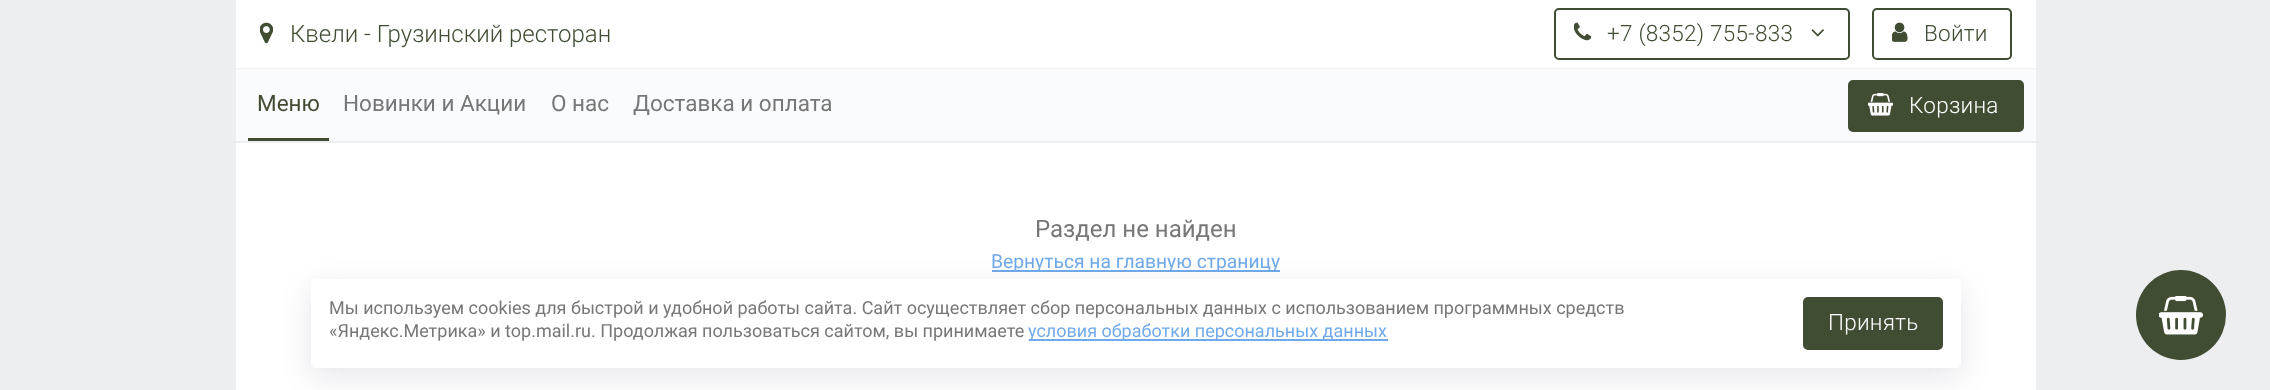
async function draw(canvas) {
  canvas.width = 2270;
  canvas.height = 390;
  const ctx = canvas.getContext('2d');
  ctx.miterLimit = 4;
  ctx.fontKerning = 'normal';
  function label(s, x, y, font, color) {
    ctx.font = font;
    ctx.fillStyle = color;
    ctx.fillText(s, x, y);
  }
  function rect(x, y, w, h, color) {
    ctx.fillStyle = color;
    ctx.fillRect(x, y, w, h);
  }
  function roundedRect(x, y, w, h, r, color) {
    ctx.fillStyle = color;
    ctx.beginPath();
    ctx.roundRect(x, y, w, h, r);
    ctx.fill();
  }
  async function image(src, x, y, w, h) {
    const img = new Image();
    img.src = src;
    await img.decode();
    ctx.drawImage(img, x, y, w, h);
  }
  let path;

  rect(0, 0, 2270, 390, '#edeef0');
  rect(236, 0, 1800, 390, '#fff');
  ctx.fillStyle = '#f3f3f4';
  path = new Path2D('M236 68V69H2036V2V68Z');
  ctx.fill(path);
  await image('assets/img1.png', 260, 22, 13, 22);
  label('Квели - Грузинский ресторан', 290, 42, '300 24px Roboto', '#404d33');
  ctx.beginPath();
  ctx.roundRect(1555, 9, 294, 50, 4);
  ctx.strokeStyle = '#404d33';
  ctx.lineWidth = 2;
  ctx.stroke();
  await image('assets/img2.png', 1574, 22, 18, 19);
  ctx.letterSpacing = '0.25px';
  label('+7 (8352) 755-833', 1607, 41, '300 22.5px Roboto', '#404d33');
  await image('assets/img3.png', 1811, 29, 13, 8);
  ctx.beginPath();
  ctx.roundRect(1873, 9, 138, 50, 4);
  ctx.stroke();
  await image('assets/img4.png', 1892, 22, 16, 20);
  label('Войти', 1924, 41, '300 22.5px Roboto', '#404d33');
  rect(236, 69, 1800, 72, '#fafbfc');
  rect(236, 141, 1800, 2, '#edeef0');
  rect(248, 138, 81, 3, '#404d33');
  ctx.letterSpacing = '0px';
  label('Меню', 257, 111, '22.5px Roboto', '#404d33');
  label('Новинки и Акции', 343, 111, '22.5px Roboto', '#777');
  label('О нас', 551, 111, '22.5px Roboto', '#777');
  label('Доставка и оплата', 633, 111, '22.5px Roboto', '#777');
  ctx.fillStyle = '#404d33';
  ctx.beginPath();
  ctx.roundRect(1849, 81, 174, 50, 4);
  ctx.fill();
  ctx.stroke();
  await image('assets/img5.png', 1868, 93, 25, 23);
  ctx.letterSpacing = '0.25px';
  label('Корзина', 1909, 113, '300 22.5px Roboto', '#fff');
  ctx.letterSpacing = '0px';
  label('Раздел не найден', 1035, 237, '24px Roboto', '#777');
  rect(992, 270, 288, 2, '#71aaeb');
  label('Вернуться на главную страницу', 991, 268, '19.25px Roboto', '#71aaeb');
  ctx.fillStyle = '#404d33';
  ctx.beginPath();
  ctx.arc(2181, 315, 45, 0, 2 * Math.PI);
  ctx.fill();
  await image('assets/img6.png', 2159, 296, 44, 39);
  ctx.save();
  path = new Path2D('M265 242H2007V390H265ZM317 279H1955C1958.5 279 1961 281.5 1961 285V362C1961 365.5 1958.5 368 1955 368H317C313.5 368 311 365.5 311 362V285C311 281.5 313.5 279 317 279Z');
  ctx.clip(path, 'evenodd');
  ctx.fillStyle = '#0605321a';
  ctx.filter = 'blur(15px)';
  ctx.beginPath();
  ctx.roundRect(311, 288, 1650, 89, 6);
  ctx.fill();
  ctx.filter = 'none';
  ctx.restore();
  roundedRect(311, 279, 1650, 89, 6, '#fffffff2');
  label('Мы используем cookies для быстрой и удобной работы сайта. Сайт осуществляет сбор персональных данных с использованием программных средств', 329, 314, '18px Roboto', '#777');
  label('«Яндекс.Метрика» и top.mail.ru. Продолжая пользоваться сайтом, вы принимаете', 329, 337, '18px Roboto', '#777');
  rect(1029, 339, 359, 2, '#71aaeb');
  label('условия обработки персональных данных', 1028, 337, '18px Roboto', '#71aaeb');
  ctx.fillStyle = '#404d33';
  ctx.beginPath();
  ctx.roundRect(1804, 298, 138, 51, 4);
  ctx.fill();
  ctx.stroke();
  ctx.letterSpacing = '0.25px';
  label('Принять', 1828, 330, '300 22.5px Roboto', '#fff');
}

draw(document.querySelector('canvas'));
